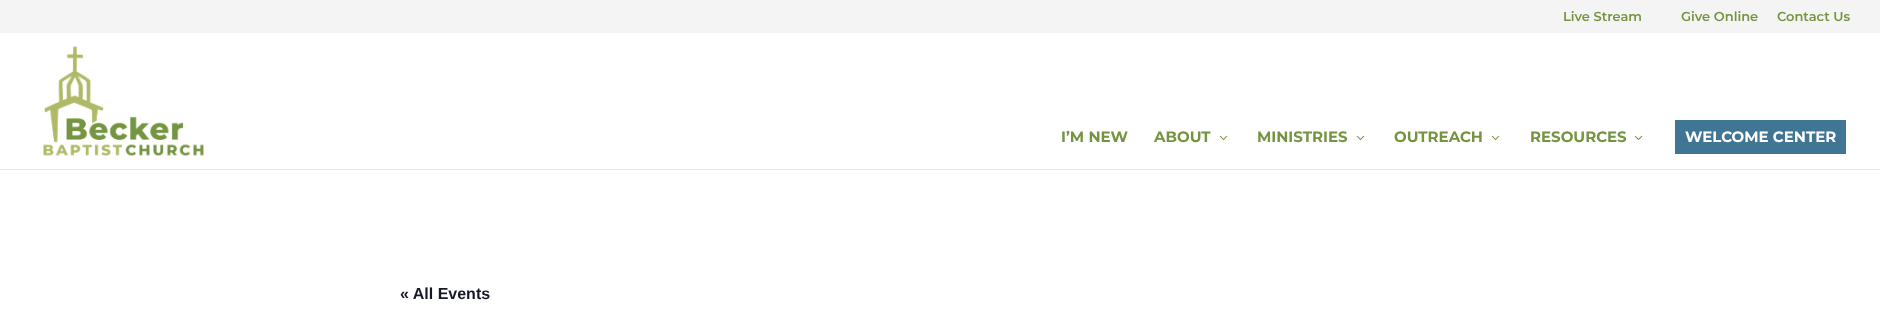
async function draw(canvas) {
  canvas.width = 1880;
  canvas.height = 336;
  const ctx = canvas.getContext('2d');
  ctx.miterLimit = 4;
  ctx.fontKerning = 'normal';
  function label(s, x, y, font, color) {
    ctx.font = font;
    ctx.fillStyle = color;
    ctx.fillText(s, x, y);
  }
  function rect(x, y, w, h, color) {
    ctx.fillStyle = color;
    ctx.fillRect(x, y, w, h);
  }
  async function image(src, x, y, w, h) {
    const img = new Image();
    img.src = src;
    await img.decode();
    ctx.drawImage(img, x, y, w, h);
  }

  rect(0, 0, 1880, 336, '#fff');
  rect(0, 0, 1880, 33, '#f4f4f4');
  label('Live Stream', 1563, 21, '100 13px "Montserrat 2"', '#759441');
  label('Give Online', 1681, 21, '100 13px "Montserrat 2"', '#759441');
  label('Contact Us', 1777, 21, '100 13px "Montserrat 2"', '#759441');
  rect(0, 169, 1880, 1, '#e6e6e6');
  await image('assets/img1.png', 43, 46, 161, 110);
  label('I’M NEW', 1061, 142, '100 15px Montserrat', '#759441');
  label('ABOUT', 1154, 142, '100 15px Montserrat', '#759441');
  await image('assets/img2.png', 1219, 135, 9, 5);
  label('MINISTRIES', 1257, 142, '100 15px Montserrat', '#759441');
  await image('assets/img2.png', 1356, 135, 9, 5);
  label('OUTREACH', 1394, 142, '100 15px Montserrat', '#759441');
  await image('assets/img2.png', 1491, 135, 9, 5);
  label('RESOURCES', 1530, 142, '100 15px Montserrat', '#759441');
  await image('assets/img2.png', 1634, 135, 9, 5);
  rect(1675, 120, 171, 34, '#417594');
  label('WELCOME CENTER', 1685, 142, '100 15px Montserrat', '#fff');
  label('« All Events', 400, 299, 'bold 16px Liberation Sans', '#141827');
}

draw(document.querySelector('canvas'));
